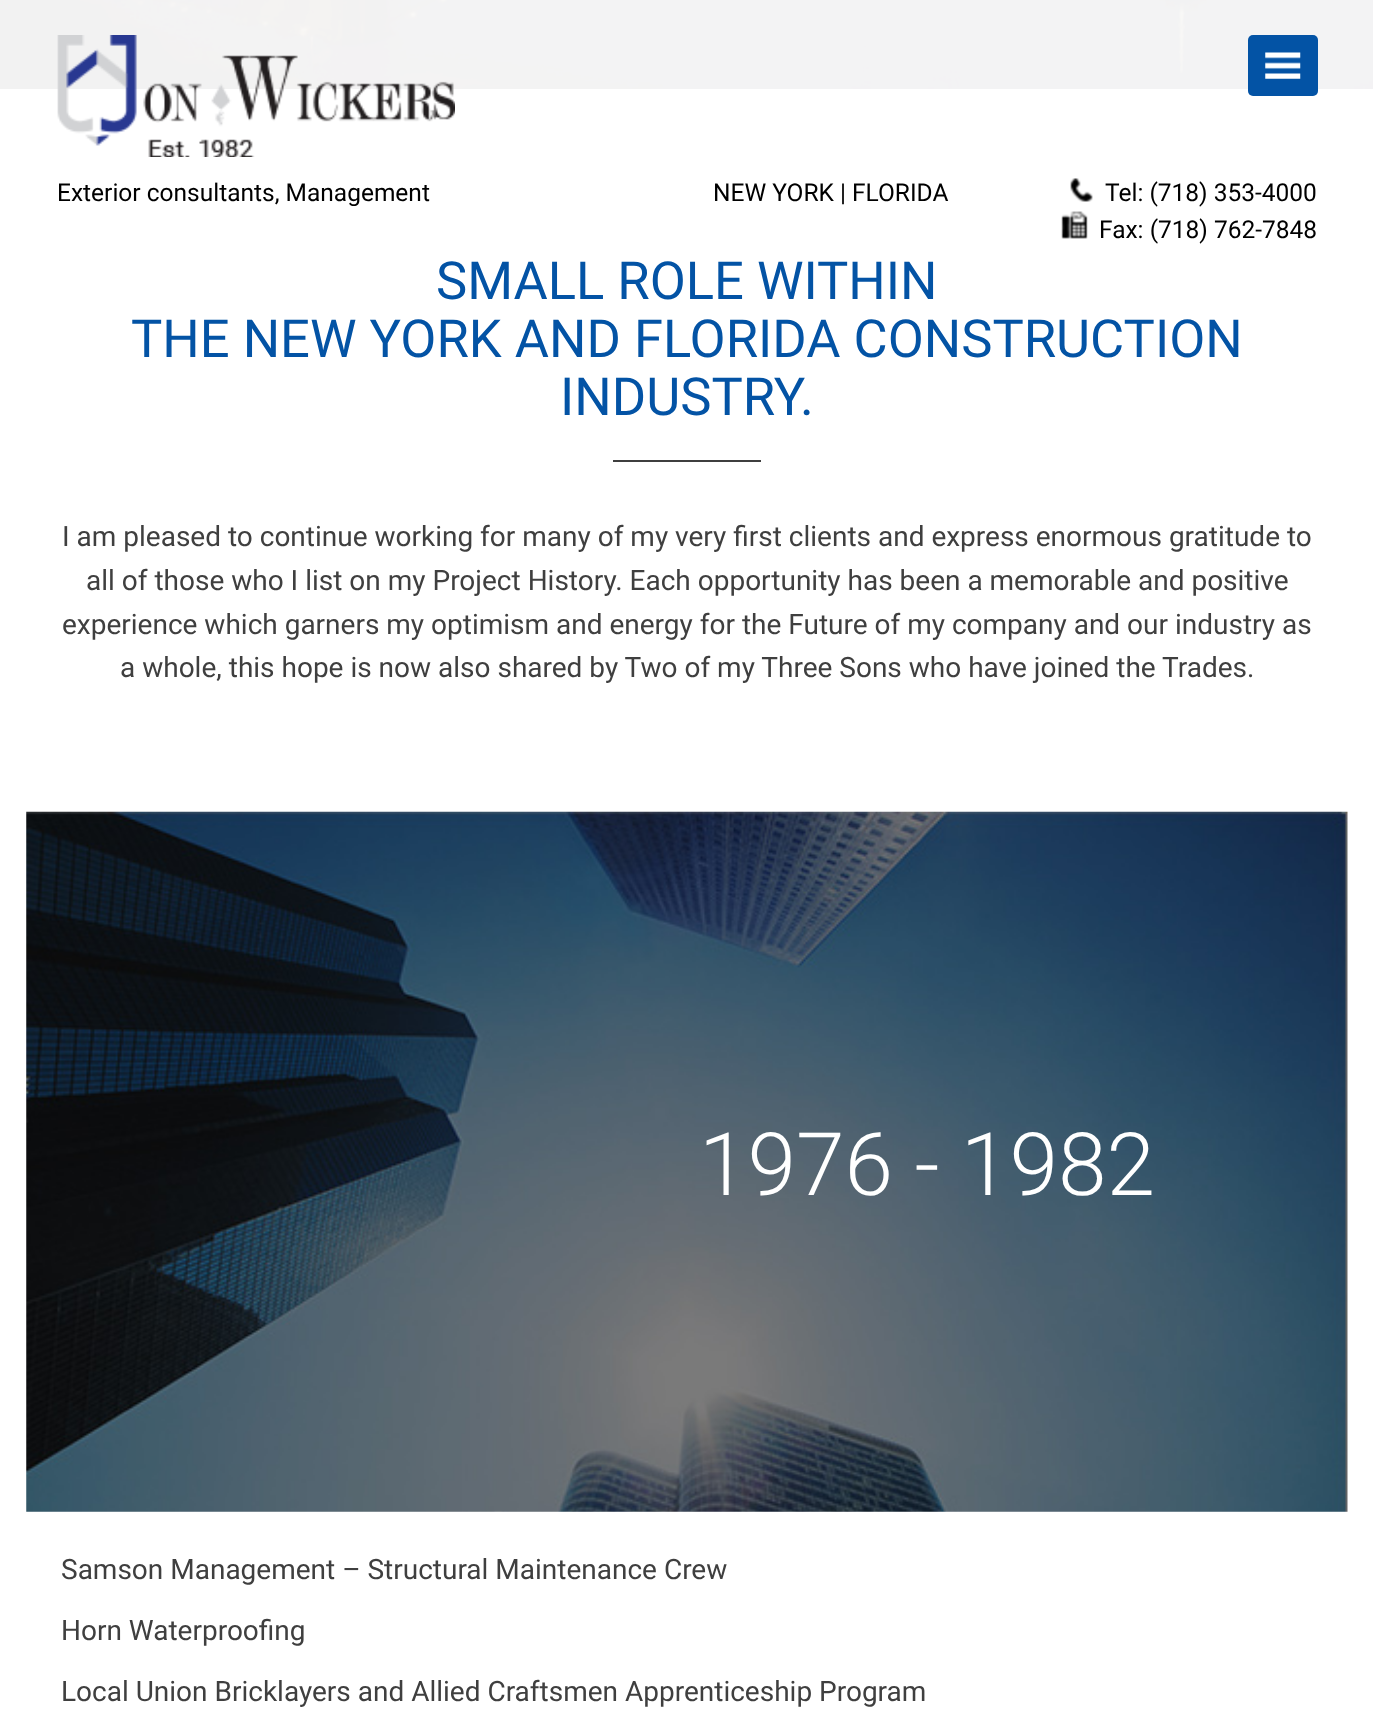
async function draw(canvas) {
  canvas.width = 1373;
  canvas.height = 1723;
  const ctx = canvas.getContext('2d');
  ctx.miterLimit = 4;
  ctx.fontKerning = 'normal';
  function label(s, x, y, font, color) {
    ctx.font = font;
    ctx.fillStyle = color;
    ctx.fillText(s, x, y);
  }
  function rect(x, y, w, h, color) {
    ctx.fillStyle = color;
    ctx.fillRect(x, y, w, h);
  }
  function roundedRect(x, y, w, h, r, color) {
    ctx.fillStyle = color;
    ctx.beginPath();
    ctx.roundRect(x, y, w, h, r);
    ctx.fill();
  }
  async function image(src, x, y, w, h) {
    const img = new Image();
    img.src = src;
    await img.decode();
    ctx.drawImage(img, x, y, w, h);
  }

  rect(0, 0, 1373, 1723, '#fff');
  await image('assets/img5.png', 0, 0, 1373, 89);
  await image('assets/img1.png', 57, 35, 398, 122);
  roundedRect(1248, 35, 70, 61, 5, '#0353a5');
  await image('assets/img2.png', 1265, 52, 36, 27);
  label('Exterior consultants, Management', 57, 201, '24.5px Roboto', '#000');
  label('NEW YORK | FLORIDA', 713, 201, '24.5px Roboto', '#000');
  await image('assets/img3.png', 1070, 178, 23, 24);
  label('Tel: (718) 353-4000', 1105, 201, '24.5px Roboto', '#000');
  await image('assets/img4.png', 1061, 211, 27, 28);
  label('Fax: (718) 762-7848', 1099, 238, '24.5px Roboto', '#000');
  label('SMALL ROLE WITHIN', 436, 299, '52.5px Roboto', '#0353a5');
  label('THE NEW YORK AND FLORIDA CONSTRUCTION', 131, 357, '52.5px Roboto', '#0353a5');
  label('INDUSTRY.', 560, 415, '52.5px Roboto', '#0353a5');
  rect(613, 460, 148, 2, '#3f3f3f');
  label('I am pleased to continue working for many of my very first clients and express enormous gratitude to', 62, 546, '28px Roboto', '#3f3f3f');
  label('all of those who I list on my Project History. Each opportunity has been a memorable and positive', 86, 590, '28px Roboto', '#3f3f3f');
  label('experience which garners my optimism and energy for the Future of my company and our industry as', 62, 634, '28px Roboto', '#3f3f3f');
  label('a whole, this hope is now also shared by Two of my Three Sons who have joined the Trades.', 120, 677, '28px Roboto', '#3f3f3f');
  await image('assets/img6.png', 26, 811, 1322, 701);
  label('1976 - 1982', 699, 1195, '300 87.5px Roboto', '#fff');
  label('Samson Management – Structural Maintenance Crew', 61, 1579, '28px Roboto', '#3f3f3f');
  label('Horn Waterproofing', 61, 1640, '28px Roboto', '#3f3f3f');
  label('Local Union Bricklayers and Allied Craftsmen Apprenticeship Program', 61, 1701, '28px Roboto', '#3f3f3f');
}

draw(document.querySelector('canvas'));
